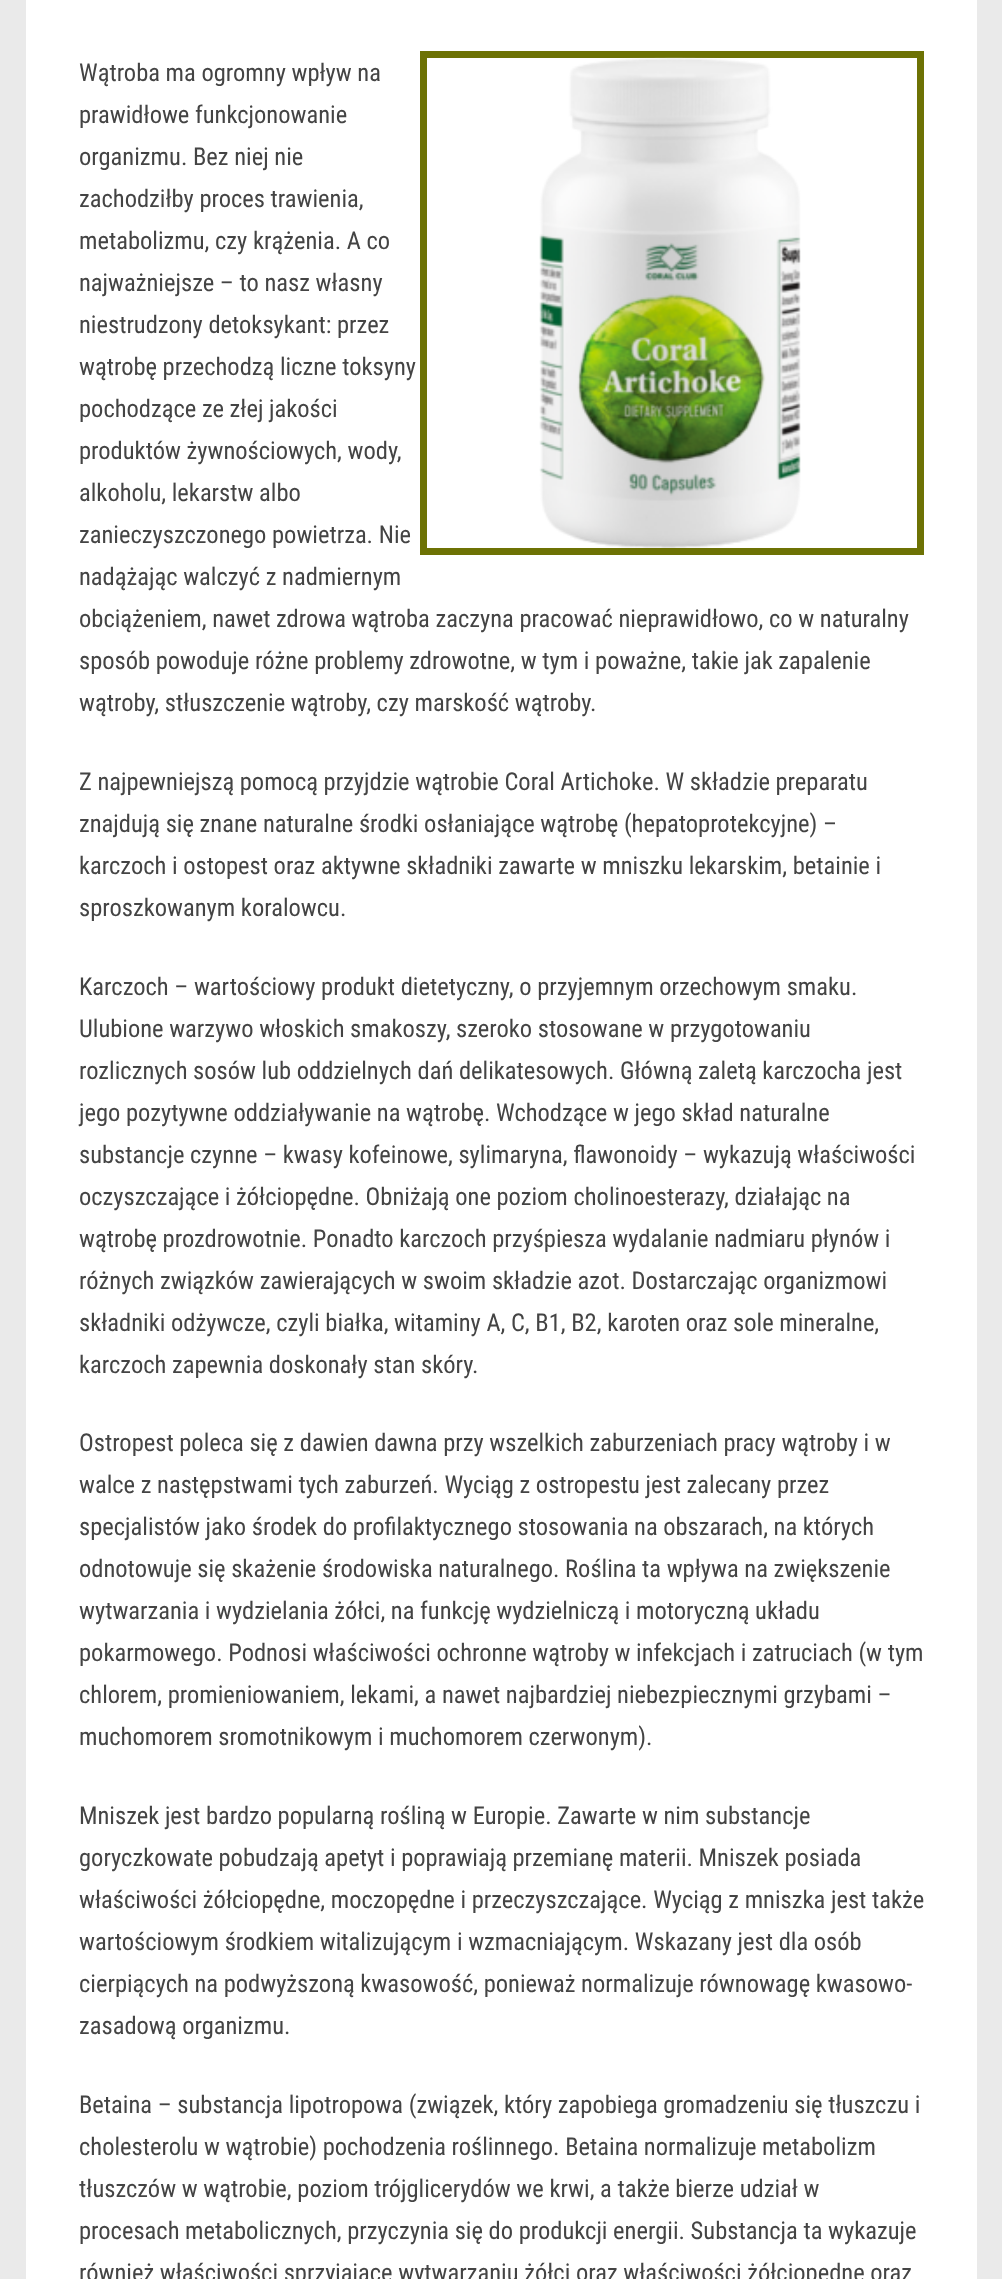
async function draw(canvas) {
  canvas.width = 1002;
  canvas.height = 2279;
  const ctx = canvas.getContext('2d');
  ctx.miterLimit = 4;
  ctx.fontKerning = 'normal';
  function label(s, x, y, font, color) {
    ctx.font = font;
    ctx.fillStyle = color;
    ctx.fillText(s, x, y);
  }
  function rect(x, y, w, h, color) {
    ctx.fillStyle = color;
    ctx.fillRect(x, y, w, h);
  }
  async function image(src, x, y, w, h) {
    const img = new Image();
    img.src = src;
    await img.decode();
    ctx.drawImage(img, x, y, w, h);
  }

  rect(0, 0, 1002, 2279, '#eaeaea');
  rect(26, 0, 951, 2279, '#fff');
  ctx.strokeStyle = '#6d7204';
  ctx.lineWidth = 7;
  ctx.strokeRect(423.5, 54.5, 497, 497);
  await image('assets/img1.png', 539, 57, 262, 491);
  label('Wątroba ma ogromny wpływ na', 79, 81, '24.5px Roboto Condensed', '#444');
  label('prawidłowe funkcjonowanie', 79, 123, '24.5px Roboto Condensed', '#444');
  label('organizmu. Bez niej nie', 79, 165, '24.5px Roboto Condensed', '#444');
  label('zachodziłby proces trawienia,', 79, 207, '24.5px Roboto Condensed', '#444');
  label('metabolizmu, czy krążenia. A co', 79, 249, '24.5px Roboto Condensed', '#444');
  label('najważniejsze – to nasz własny', 79, 291, '24.5px Roboto Condensed', '#444');
  label('niestrudzony detoksykant: przez', 79, 333, '24.5px Roboto Condensed', '#444');
  label('wątrobę przechodzą liczne toksyny', 79, 375, '24.5px Roboto Condensed', '#444');
  label('pochodzące ze złej jakości', 79, 417, '24.5px Roboto Condensed', '#444');
  label('produktów żywnościowych, wody,', 79, 459, '24.5px Roboto Condensed', '#444');
  label('alkoholu, lekarstw albo', 79, 501, '24.5px Roboto Condensed', '#444');
  label('zanieczyszczonego powietrza. Nie', 79, 543, '24.5px Roboto Condensed', '#444');
  label('nadążając walczyć z nadmiernym', 79, 585, '24.5px Roboto Condensed', '#444');
  label('obciążeniem, nawet zdrowa wątroba zaczyna pracować nieprawidłowo, co w naturalny', 79, 627, '24.5px Roboto Condensed', '#444');
  label('sposób powoduje różne problemy zdrowotne, w tym i poważne, takie jak zapalenie', 79, 669, '24.5px Roboto Condensed', '#444');
  label('wątroby, stłuszczenie wątroby, czy marskość wątroby.', 79, 711, '24.5px Roboto Condensed', '#444');
  label('Z najpewniejszą pomocą przyjdzie wątrobie Coral Artichoke. W składzie preparatu', 79, 790, '24.5px Roboto Condensed', '#444');
  label('znajdują się znane naturalne środki osłaniające wątrobę (hepatoprotekcyjne) –', 79, 832, '24.5px Roboto Condensed', '#444');
  label('karczoch i ostopest oraz aktywne składniki zawarte w mniszku lekarskim, betainie i', 79, 874, '24.5px Roboto Condensed', '#444');
  label('sproszkowanym koralowcu.', 79, 916, '24.5px Roboto Condensed', '#444');
  label('Karczoch – wartościowy produkt dietetyczny, o przyjemnym orzechowym smaku.', 79, 995, '24.5px Roboto Condensed', '#444');
  label('Ulubione warzywo włoskich smakoszy, szeroko stosowane w przygotowaniu', 79, 1037, '24.5px Roboto Condensed', '#444');
  label('rozlicznych sosów lub oddzielnych dań delikatesowych. Główną zaletą karczocha jest', 79, 1079, '24.5px Roboto Condensed', '#444');
  label('jego pozytywne oddziaływanie na wątrobę. Wchodzące w jego skład naturalne', 79, 1121, '24.5px Roboto Condensed', '#444');
  label('substancje czynne – kwasy kofeinowe, sylimaryna, flawonoidy – wykazują właściwości', 79, 1163, '24.5px Roboto Condensed', '#444');
  label('oczyszczające i żółciopędne. Obniżają one poziom cholinoesterazy, działając na', 79, 1205, '24.5px Roboto Condensed', '#444');
  label('wątrobę prozdrowotnie. Ponadto karczoch przyśpiesza wydalanie nadmiaru płynów i', 79, 1247, '24.5px Roboto Condensed', '#444');
  label('różnych związków zawierających w swoim składzie azot. Dostarczając organizmowi', 79, 1289, '24.5px Roboto Condensed', '#444');
  label('składniki odżywcze, czyli białka, witaminy A, C, B1, B2, karoten oraz sole mineralne,', 79, 1331, '24.5px Roboto Condensed', '#444');
  label('karczoch zapewnia doskonały stan skóry.', 79, 1373, '24.5px Roboto Condensed', '#444');
  label('Ostropest poleca się z dawien dawna przy wszelkich zaburzeniach pracy wątroby i w', 79, 1451, '24.5px Roboto Condensed', '#444');
  label('walce z następstwami tych zaburzeń. Wyciąg z ostropestu jest zalecany przez', 79, 1493, '24.5px Roboto Condensed', '#444');
  label('specjalistów jako środek do profilaktycznego stosowania na obszarach, na których', 79, 1535, '24.5px Roboto Condensed', '#444');
  label('odnotowuje się skażenie środowiska naturalnego. Roślina ta wpływa na zwiększenie', 79, 1577, '24.5px Roboto Condensed', '#444');
  label('wytwarzania i wydzielania żółci, na funkcję wydzielniczą i motoryczną układu', 79, 1619, '24.5px Roboto Condensed', '#444');
  label('pokarmowego. Podnosi właściwości ochronne wątroby w infekcjach i zatruciach (w tym', 79, 1661, '24.5px Roboto Condensed', '#444');
  label('chlorem, promieniowaniem, lekami, a nawet najbardziej niebezpiecznymi grzybami –', 79, 1703, '24.5px Roboto Condensed', '#444');
  label('muchomorem sromotnikowym i muchomorem czerwonym).', 79, 1745, '24.5px Roboto Condensed', '#444');
  label('Mniszek jest bardzo popularną rośliną w Europie. Zawarte w nim substancje', 79, 1824, '24.5px Roboto Condensed', '#444');
  label('goryczkowate pobudzają apetyt i poprawiają przemianę materii. Mniszek posiada', 79, 1866, '24.5px Roboto Condensed', '#444');
  label('właściwości żółciopędne, moczopędne i przeczyszczające. Wyciąg z mniszka jest także', 79, 1908, '24.5px Roboto Condensed', '#444');
  label('wartościowym środkiem witalizującym i wzmacniającym. Wskazany jest dla osób', 79, 1950, '24.5px Roboto Condensed', '#444');
  label('cierpiących na podwyższoną kwasowość, ponieważ normalizuje równowagę kwasowo-', 79, 1992, '24.5px Roboto Condensed', '#444');
  label('zasadową organizmu.', 79, 2034, '24.5px Roboto Condensed', '#444');
  label('Betaina – substancja lipotropowa (związek, który zapobiega gromadzeniu się tłuszczu i', 79, 2113, '24.5px Roboto Condensed', '#444');
  label('cholesterolu w wątrobie) pochodzenia roślinnego. Betaina normalizuje metabolizm', 79, 2155, '24.5px Roboto Condensed', '#444');
  label('tłuszczów w wątrobie, poziom trójglicerydów we krwi, a także bierze udział w', 79, 2197, '24.5px Roboto Condensed', '#444');
  label('procesach metabolicznych, przyczynia się do produkcji energii. Substancja ta wykazuje', 79, 2239, '24.5px Roboto Condensed', '#444');
  label('również właściwości sprzyjające wytwarzaniu żółci oraz właściwości żółciopędne oraz', 79, 2281, '24.5px Roboto Condensed', '#444');
}

draw(document.querySelector('canvas'));
